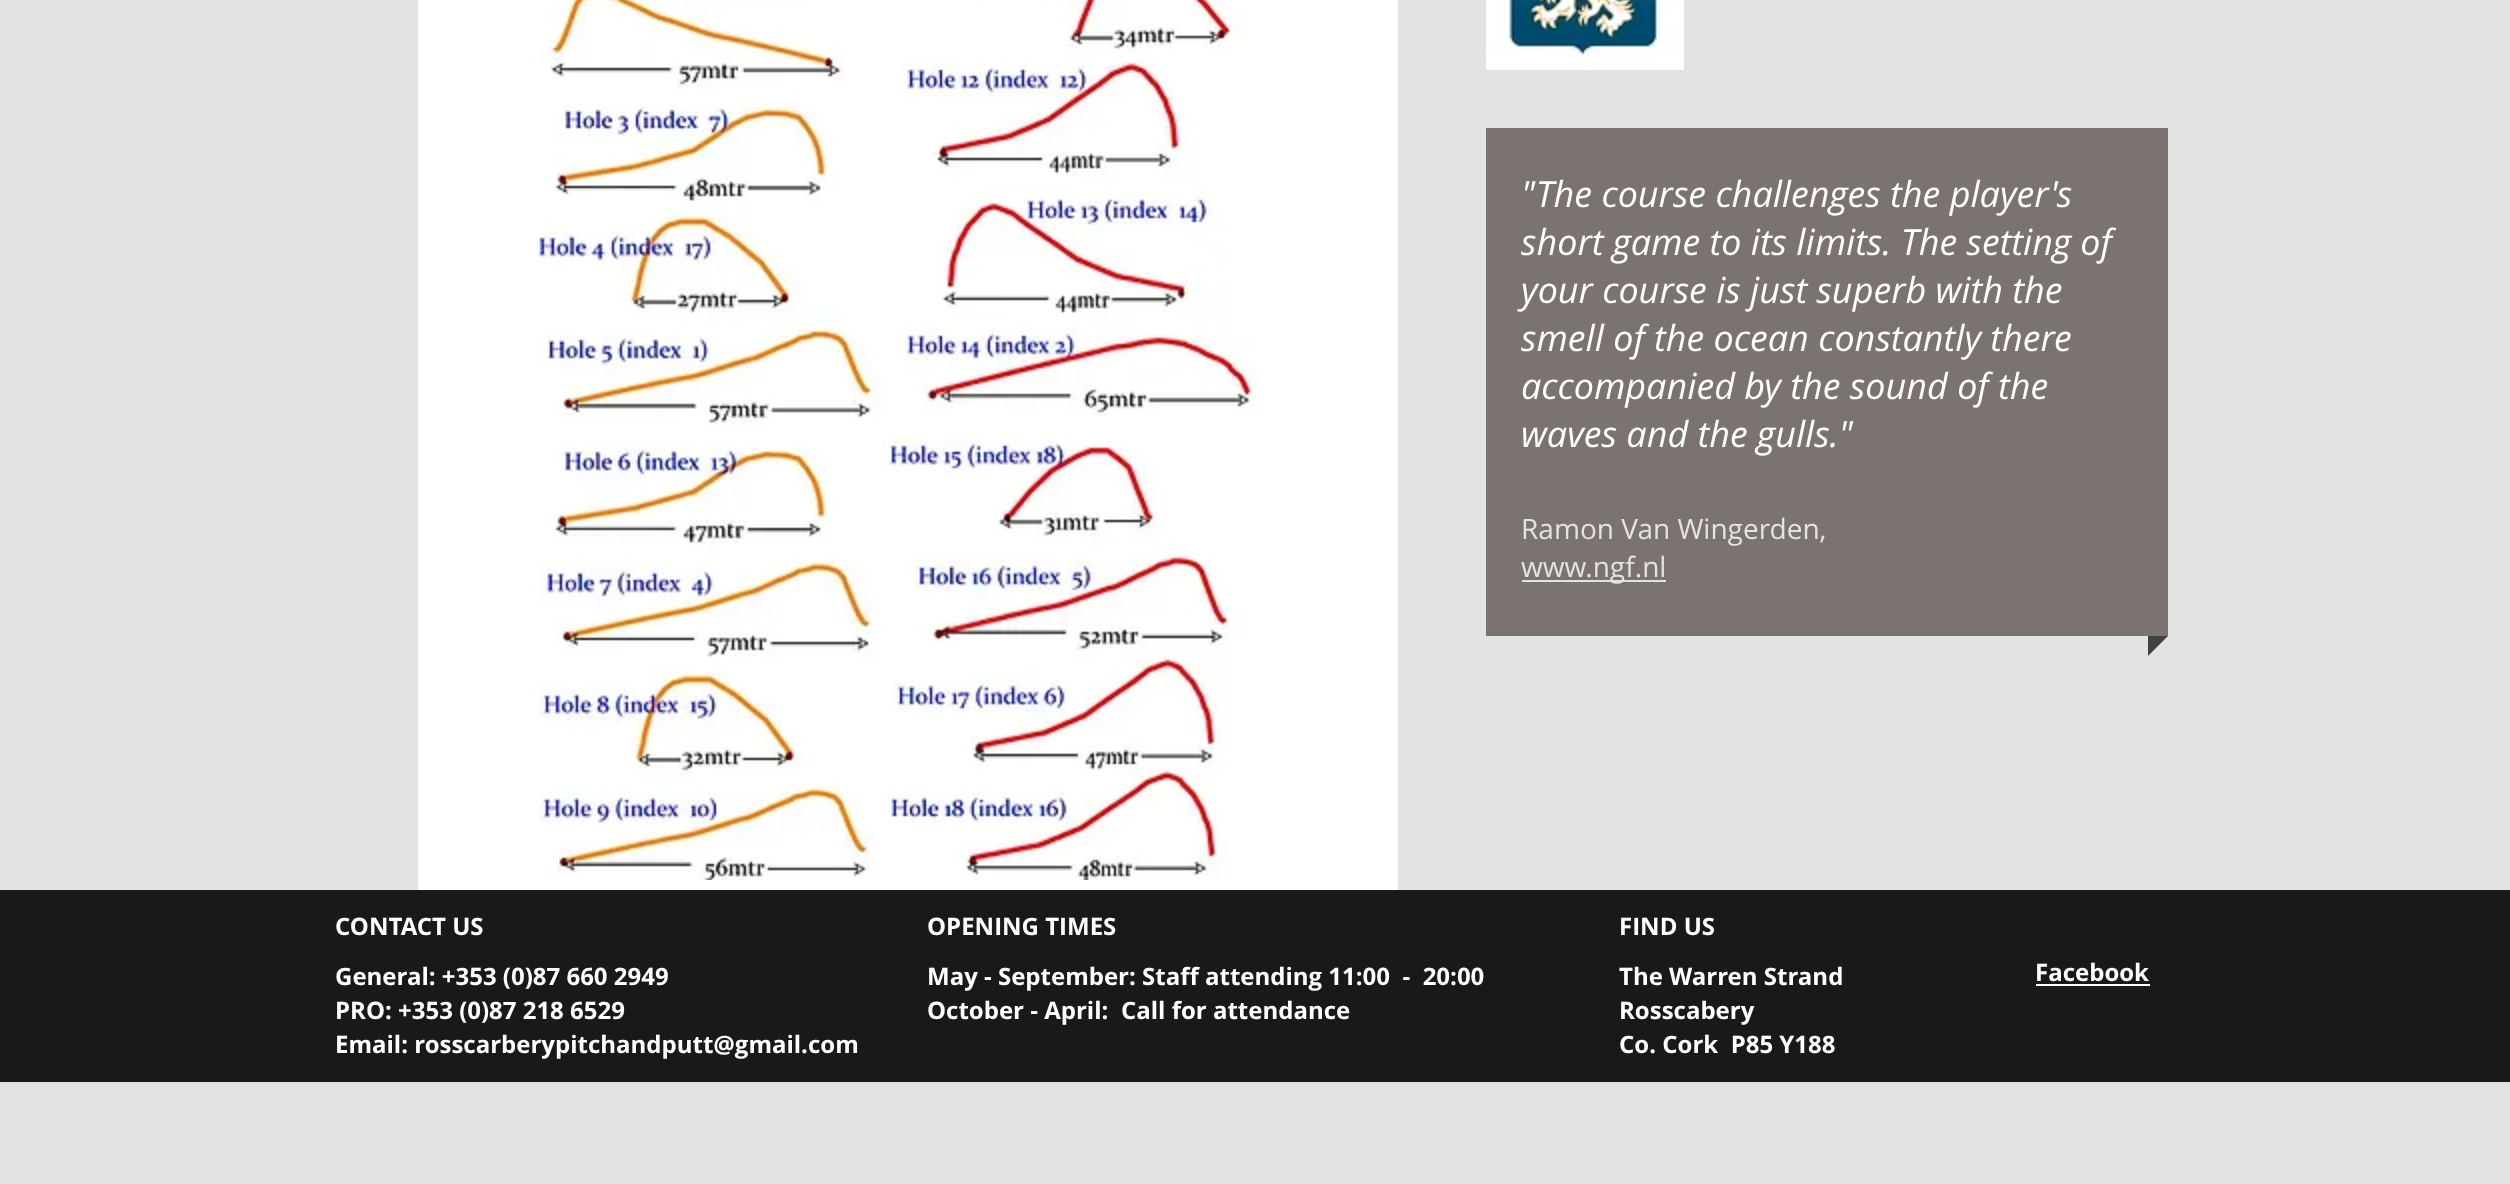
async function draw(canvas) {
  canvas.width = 2510;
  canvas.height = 1184;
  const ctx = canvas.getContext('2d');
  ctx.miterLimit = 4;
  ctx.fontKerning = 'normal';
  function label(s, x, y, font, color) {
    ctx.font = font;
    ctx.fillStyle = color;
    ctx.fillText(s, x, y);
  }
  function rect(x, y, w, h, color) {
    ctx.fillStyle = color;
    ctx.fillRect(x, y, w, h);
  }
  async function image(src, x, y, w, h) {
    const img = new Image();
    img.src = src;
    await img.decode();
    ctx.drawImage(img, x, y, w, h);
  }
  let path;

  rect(0, 0, 2510, 1184, '#e3e3e3');
  rect(418, 0, 980, 890, '#fff');
  await image('assets/img1.png', 537, 0, 723, 880);
  await image('assets/img2.png', 1486, 0, 198, 70);
  rect(1486, 128, 682, 508, '#7b736f');
  label('"The course challenges the player\'s', 1521, 207, 'italic 36px Open Sans', '#fff');
  label('short game to its limits. The setting of', 1521, 255, 'italic 36px Open Sans', '#fff');
  label('your course is just superb with the', 1521, 303, 'italic 36px Open Sans', '#fff');
  label('smell of the ocean constantly there', 1521, 351, 'italic 36px Open Sans', '#fff');
  label('accompanied by the sound of the', 1521, 399, 'italic 36px Open Sans', '#fff');
  label('waves and the gulls."', 1521, 447, 'italic 36px Open Sans', '#fff');
  label('Ramon Van Wingerden,', 1521, 539, '28px Open Sans', '#e3e3e3');
  rect(1522, 580, 144, 2, '#e3e3e3');
  label('www.ngf.nl', 1521, 577, '28px Open Sans', '#e3e3e3');
  ctx.fillStyle = '#414141';
  path = new Path2D('M2148 636H2168L2148 656Z');
  ctx.fill(path);
  rect(0, 890, 2510, 192, '#181919');
  label('CONTACT US', 335, 935, 'bold 24px Open Sans', '#fff');
  label('OPENING TIMES', 927, 935, 'bold 24px Open Sans', '#fff');
  label('FIND US', 1619, 935, 'bold 24px Open Sans', '#fff');
  label('General: +353 (0)87 660 2949', 335, 985, 'bold 24px Open Sans', '#fff');
  label('PRO: +353 (0)87 218 6529', 335, 1019, 'bold 24px Open Sans', '#fff');
  label('Email: rosscarberypitchandputt@gmail.com', 335, 1053, 'bold 24px Open Sans', '#fff');
  label('May - September: Staff attending 11:00  -  20:00', 927, 985, 'bold 24px Open Sans', '#fff');
  label('October - April:', 927, 1019, 'bold 24px Open Sans', '#fff');
  label('Call for attendance', 1121, 1019, 'bold 24px Open Sans', '#fff');
  label('The Warren Strand', 1619, 985, 'bold 24px Open Sans', '#fff');
  label('Rosscabery', 1619, 1019, 'bold 24px Open Sans', '#fff');
  label('Co. Cork  P85 Y188', 1619, 1053, 'bold 24px Open Sans', '#fff');
  label('Facebook', 2035, 981, 'bold 24px Open Sans', '#fff');
  rect(2036, 984, 114, 2, '#fff');
}

draw(document.querySelector('canvas'));
